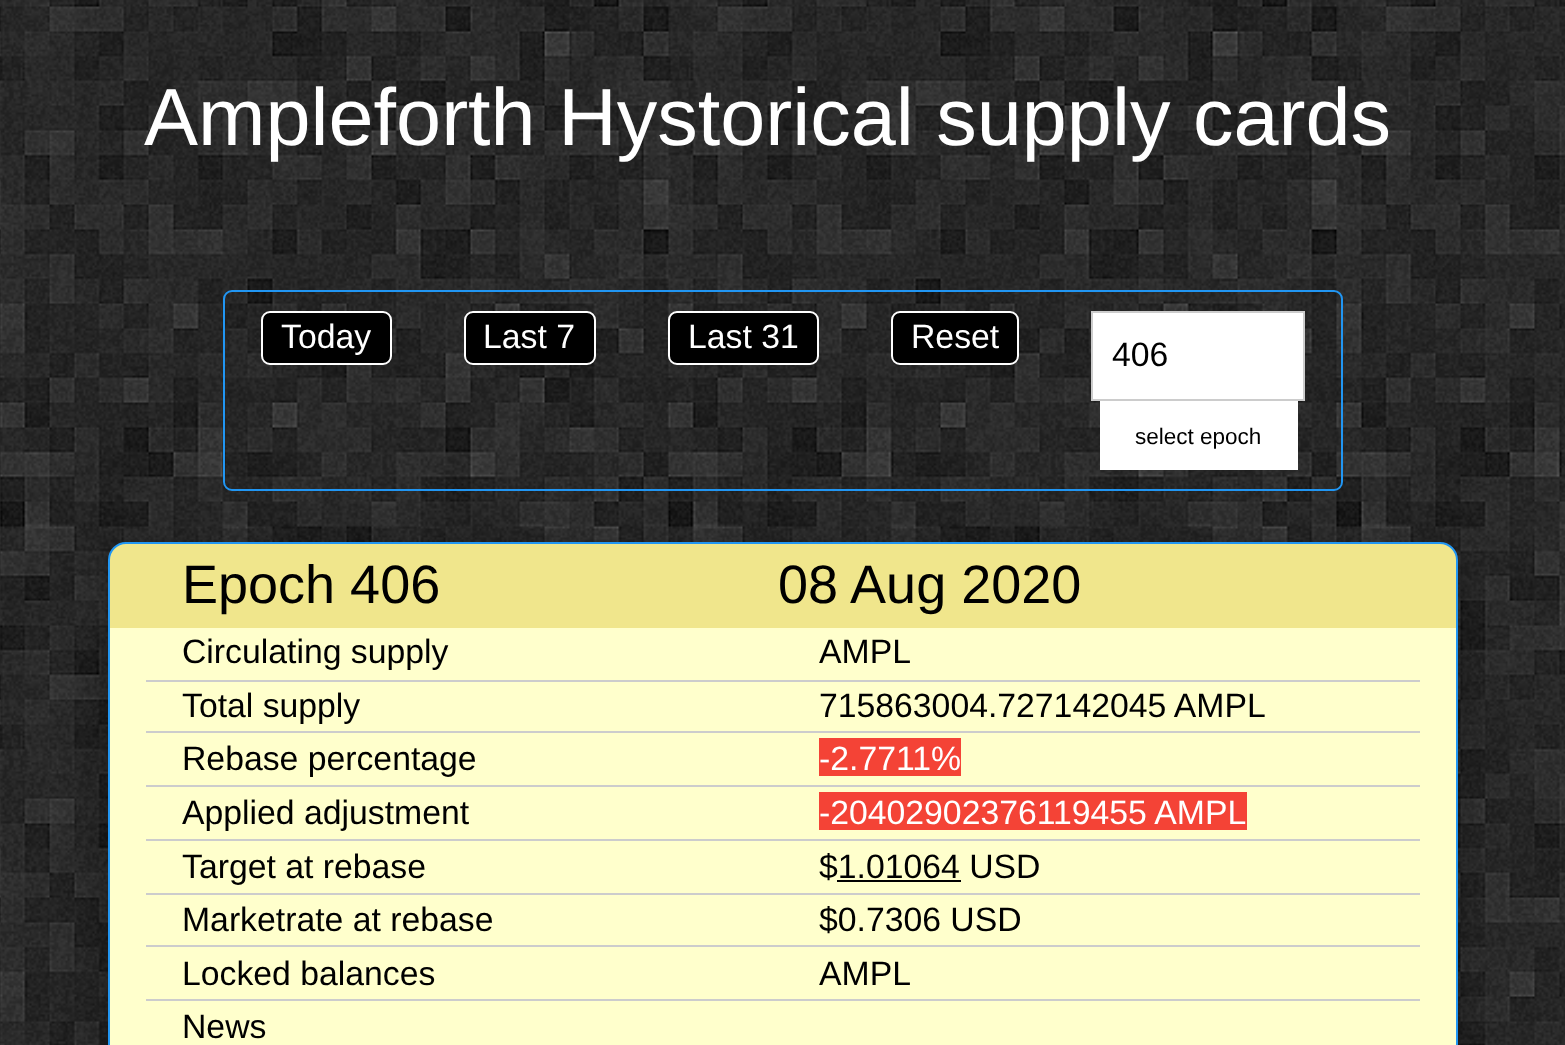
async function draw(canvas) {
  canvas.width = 1565;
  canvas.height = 1045;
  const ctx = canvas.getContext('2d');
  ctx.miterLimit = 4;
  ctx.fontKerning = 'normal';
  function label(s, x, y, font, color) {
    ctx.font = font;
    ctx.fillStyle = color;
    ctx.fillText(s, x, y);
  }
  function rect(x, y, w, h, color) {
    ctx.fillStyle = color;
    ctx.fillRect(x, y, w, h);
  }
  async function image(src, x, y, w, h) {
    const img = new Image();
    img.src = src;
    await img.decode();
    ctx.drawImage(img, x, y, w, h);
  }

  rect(0, 0, 1565, 1045, '#000');
  await image('assets/img1.png', 0, 0, 1565, 1045);
  label('Ampleforth Hystorical supply cards', 144, 145, '81px Liberation Sans', '#fff');
  ctx.fillStyle = '#00000030';
  ctx.filter = 'blur(22.5px)';
  ctx.beginPath();
  ctx.roundRect(108, 551, 1350, 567, 18);
  ctx.fill();
  ctx.filter = 'none';
  ctx.beginPath();
  ctx.roundRect(224, 291, 1118, 199, 8);
  ctx.strokeStyle = '#2196f3';
  ctx.lineWidth = 2;
  ctx.stroke();
  ctx.fillStyle = '#000';
  ctx.beginPath();
  ctx.roundRect(262, 312, 129, 52, 8);
  ctx.fill();
  ctx.strokeStyle = '#fff';
  ctx.stroke();
  label('Today', 281, 348, '33.75px Liberation Sans', '#fff');
  ctx.fillStyle = '#000';
  ctx.beginPath();
  ctx.roundRect(465, 312, 130, 52, 8);
  ctx.fill();
  ctx.stroke();
  label('Last 7', 483, 348, '33.75px Liberation Sans', '#fff');
  ctx.fillStyle = '#000';
  ctx.beginPath();
  ctx.roundRect(669, 312, 149, 52, 8);
  ctx.fill();
  ctx.stroke();
  label('Last 31', 688, 348, '33.75px Liberation Sans', '#fff');
  ctx.fillStyle = '#000';
  ctx.beginPath();
  ctx.roundRect(892, 312, 126, 52, 8);
  ctx.fill();
  ctx.stroke();
  label('Reset', 911, 348, '33.75px Liberation Sans', '#fff');
  ctx.beginPath();
  ctx.rect(1092, 312, 212, 88);
  ctx.fill();
  ctx.strokeStyle = '#ccc';
  ctx.stroke();
  label('406', 1112, 366, '33.75px Liberation Sans', '#000');
  rect(1100, 401, 198, 69, '#fff');
  label('select epoch', 1135, 444, '22.5px Liberation Sans', '#000');
  ctx.fillStyle = '#00000033';
  ctx.filter = 'blur(11px)';
  ctx.beginPath();
  ctx.roundRect(108, 551, 1350, 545, 18);
  ctx.fill();
  ctx.filter = 'none';
  ctx.fillStyle = '#f0e68c';
  ctx.beginPath();
  ctx.roundRect(109, 543, 1348, 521, 17);
  ctx.fill();
  ctx.strokeStyle = '#2196f3';
  ctx.stroke();
  label('Epoch 406', 182, 603, '54px Liberation Sans', '#000');
  label('08 Aug 2020', 778, 603, '54px Liberation Sans', '#000');
  rect(110, 628, 1346, 417, '#ffc');
  rect(146, 680, 1274, 2, '#ccc');
  label('Circulating supply', 182, 663, '33.75px Liberation Sans', '#000');
  label('AMPL', 819, 663, '33.75px Liberation Sans', '#000');
  rect(146, 731, 1274, 2, '#ccc');
  label('Total supply', 182, 717, '33.75px Liberation Sans', '#000');
  label('715863004.727142045 AMPL', 819, 717, '33.75px Liberation Sans', '#000');
  rect(146, 785, 1274, 2, '#ccc');
  label('Rebase percentage', 182, 770, '33.75px Liberation Sans', '#000');
  rect(819, 738, 142, 38, '#f44336');
  label('-2.7711%', 819, 770, '33.75px Liberation Sans', '#fff');
  rect(146, 839, 1274, 2, '#ccc');
  label('Applied adjustment', 182, 824, '33.75px Liberation Sans', '#000');
  rect(819, 792, 428, 38, '#f44336');
  label('-20402902376119455 AMPL', 819, 824, '33.75px Liberation Sans', '#fff');
  rect(146, 893, 1274, 2, '#ccc');
  label('Target at rebase', 182, 878, '33.75px Liberation Sans', '#000');
  label('$1.01064 USD', 819, 878, '33.75px Liberation Sans', '#000');
  rect(837, 880, 124, 2, '#000');
  rect(146, 945, 1274, 2, '#ccc');
  label('Marketrate at rebase', 182, 931, '33.75px Liberation Sans', '#000');
  label('$0.7306 USD', 819, 931, '33.75px Liberation Sans', '#000');
  rect(146, 999, 1274, 2, '#ccc');
  label('Locked balances', 182, 985, '33.75px Liberation Sans', '#000');
  label('AMPL', 819, 985, '33.75px Liberation Sans', '#000');
  label('News', 182, 1038, '33.75px Liberation Sans', '#000');
}

draw(document.querySelector('canvas'));
